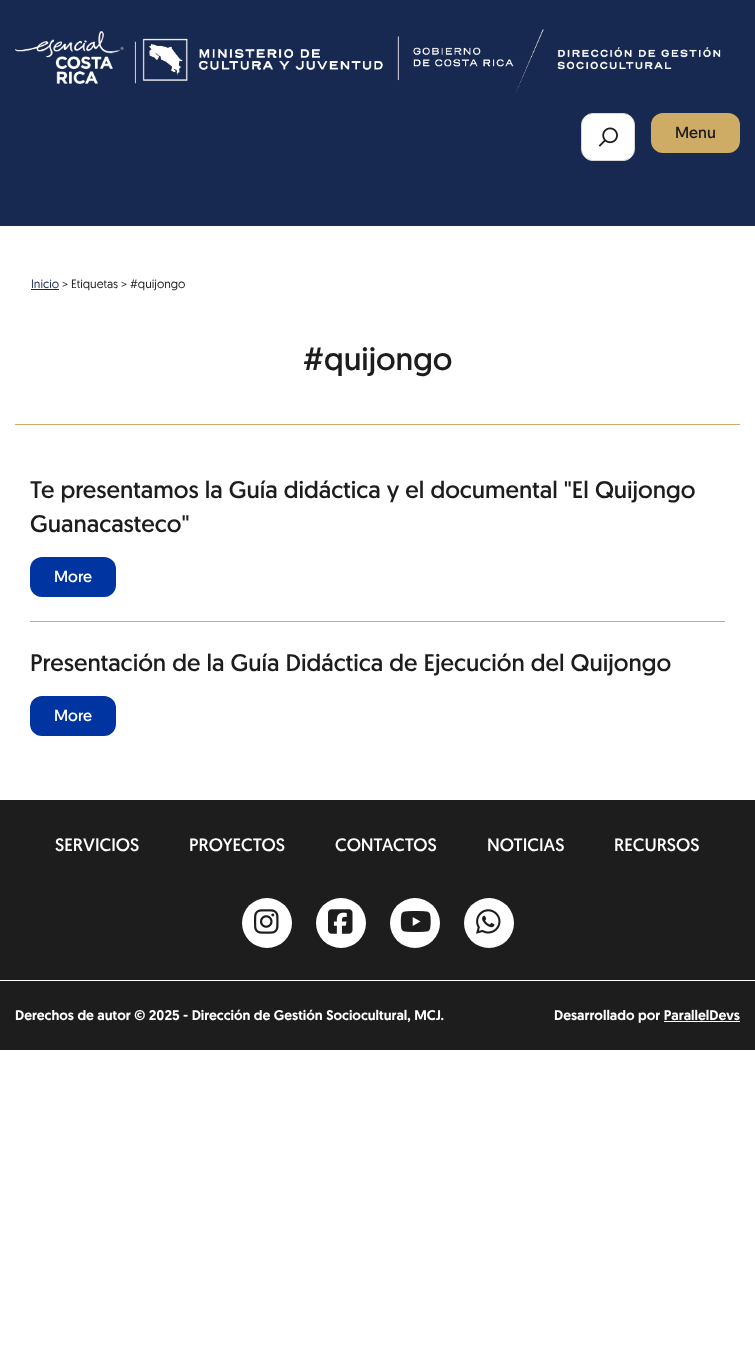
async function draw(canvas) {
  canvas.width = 755;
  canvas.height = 1372;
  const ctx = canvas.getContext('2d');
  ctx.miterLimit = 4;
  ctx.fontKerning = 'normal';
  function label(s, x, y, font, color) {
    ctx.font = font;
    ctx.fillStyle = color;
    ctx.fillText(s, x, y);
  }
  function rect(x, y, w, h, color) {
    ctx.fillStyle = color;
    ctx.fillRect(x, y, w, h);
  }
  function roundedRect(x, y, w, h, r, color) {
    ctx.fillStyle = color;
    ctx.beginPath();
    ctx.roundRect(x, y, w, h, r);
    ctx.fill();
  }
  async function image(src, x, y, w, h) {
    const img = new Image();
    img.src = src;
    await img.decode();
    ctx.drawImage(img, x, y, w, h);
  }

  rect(0, 0, 755, 1372, '#fff');
  rect(0, 0, 755, 226, '#182951');
  await image('assets/img1.png', 15, 29, 706, 64);
  ctx.fillStyle = '#fff';
  ctx.beginPath();
  ctx.roundRect(581.5, 113.5, 53, 47, 11.5);
  ctx.fill();
  ctx.strokeStyle = '#d7d7d7';
  ctx.stroke();
  await image('assets/img2.png', 599, 127, 19, 20);
  roundedRect(651, 113, 89, 40, 12, '#cfac65');
  label('Menu', 675, 138, '16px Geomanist', '#1d1d1d');
  label('Inicio', 31, 288, '12px "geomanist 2"', '#182951');
  rect(31, 289, 28, 1, '#182951');
  label('> Etiquetas > #quijongo', 62, 288, '12px "geomanist 2"', '#1d1d1d');
  label('#quijongo', 303, 370, '32px Geomanist', '#1d1d1d');
  rect(15, 424, 725, 1, '#cfac65');
  rect(30, 621, 695, 1, '#cfac65');
  label('Te presentamos la Guía didáctica y el documental "El Quijongo', 30, 498, '24px Geomanist', '#1d1d1d');
  label('Guanacasteco"', 30, 532, '24px Geomanist', '#1d1d1d');
  roundedRect(30, 557, 86, 40, 12, '#0034a0');
  label('More', 54, 582, '16px Geomanist', '#fff');
  label('Presentación de la Guía Didáctica de Ejecución del Quijongo', 30, 671, '24px Geomanist', '#1d1d1d');
  roundedRect(30, 696, 86, 40, 12, '#0034a0');
  label('More', 54, 721, '16px Geomanist', '#fff');
  rect(0, 800, 755, 250, '#1d1d1d');
  label('SERVICIOS', 55, 851, '18px Geomanist', '#fff');
  label('PROYECTOS', 189, 851, '18px Geomanist', '#fff');
  label('CONTACTOS', 335, 851, '18px Geomanist', '#fff');
  label('NOTICIAS', 487, 851, '18px Geomanist', '#fff');
  label('RECURSOS', 614, 851, '18px Geomanist', '#fff');
  ctx.beginPath();
  ctx.arc(267, 923, 25, 0, 2 * Math.PI);
  ctx.fill();
  await image('assets/img3.png', 254, 909, 25, 25);
  ctx.beginPath();
  ctx.arc(341, 923, 25, 0, 2 * Math.PI);
  ctx.fill();
  await image('assets/img4.png', 328, 909, 25, 25);
  ctx.beginPath();
  ctx.arc(415, 923, 25, 0, 2 * Math.PI);
  ctx.fill();
  await image('assets/img5.png', 400, 911, 31, 21);
  ctx.beginPath();
  ctx.arc(489, 923, 25, 0, 2 * Math.PI);
  ctx.fill();
  await image('assets/img6.png', 476, 909, 25, 25);
  rect(0, 980, 755, 1, '#fff');
  label('Derechos de autor © 2025 - Dirección de Gestión Sociocultural, MCJ.', 15, 1020, '500 14px Geomanist', '#fff');
  label('Desarrollado por ParallelDevs', 554, 1020, '500 14px Geomanist', '#fff');
  rect(664, 1021, 76, 1, '#fff');
}

draw(document.querySelector('canvas'));
